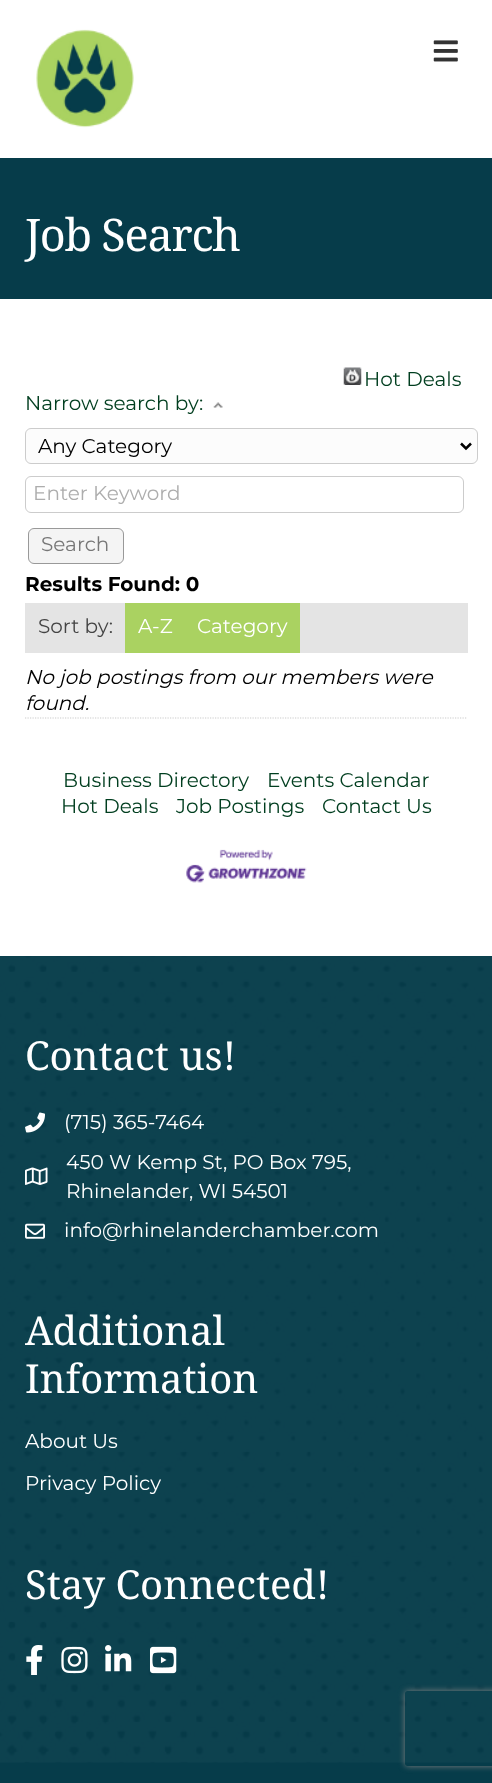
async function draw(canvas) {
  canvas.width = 492;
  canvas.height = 1783;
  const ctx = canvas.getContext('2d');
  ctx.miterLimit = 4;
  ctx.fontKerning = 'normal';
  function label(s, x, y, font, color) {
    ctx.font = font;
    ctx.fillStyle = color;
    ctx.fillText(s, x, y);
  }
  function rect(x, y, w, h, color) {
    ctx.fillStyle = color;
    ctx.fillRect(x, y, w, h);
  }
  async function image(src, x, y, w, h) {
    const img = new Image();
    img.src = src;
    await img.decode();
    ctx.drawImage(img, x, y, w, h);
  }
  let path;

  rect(0, 0, 492, 1783, '#fff');
  await image('assets/img1.png', 36, 29, 98, 99);
  await image('assets/img2.png', 433, 40, 25, 22);
  rect(0, 158, 492, 141, '#063c4a');
  ctx.letterSpacing = '-1.25px';
  label('Job Search', 25, 251, '45px Noto Serif', '#fff');
  await image('assets/img3.png', 343, 367, 19, 18);
  ctx.letterSpacing = '0px';
  label('Hot Deals', 364, 386, '20px Montserrat', '#003e1f');
  label('Narrow search by:', 25, 410, '20px Montserrat', '#003e1f');
  await image('assets/img4.png', 213, 402, 10, 6);
  ctx.fillStyle = '#fcfcfc';
  ctx.beginPath();
  ctx.roundRect(25.5, 428.5, 452, 35, 5.5);
  ctx.fill();
  ctx.strokeStyle = '#ccc';
  ctx.stroke();
  path = new Path2D('M461 443.5L466 448.5L471 443.5');
  ctx.strokeStyle = '#000';
  ctx.lineWidth = 2.5;
  ctx.stroke(path);
  label('Any Category', 38, 453, '20px Montserrat', '#000');
  ctx.beginPath();
  ctx.roundRect(25.5, 476.5, 438, 36, 5.5);
  ctx.strokeStyle = '#ccc';
  ctx.lineWidth = 1;
  ctx.stroke();
  label('Enter Keyword', 33, 500, '20px Montserrat', '#adadad');
  ctx.fillStyle = '#f4f4f4';
  ctx.beginPath();
  ctx.roundRect(28.5, 528.5, 95, 35, 5.5);
  ctx.fill();
  ctx.strokeStyle = '#999';
  ctx.stroke();
  label('Search', 41, 551, '20px Montserrat', '#777');
  label('Results Found: 0', 25, 591, 'bold 20px Montserrat', '#000');
  rect(25, 603, 443, 50, '#e4e4e4');
  label('Sort by:', 38, 633, '20px Montserrat', '#444');
  rect(125, 603, 175, 50, '#aad261');
  label('A-Z', 138, 633, '20px Montserrat', '#fff');
  label('Category', 197, 633, '20px Montserrat', '#fff');
  path = new Path2D('M25 718H467.5');
  ctx.strokeStyle = '#ccc';
  ctx.lineWidth = 1.2;
  ctx.setLineDash([1.25, 1.25]);
  ctx.stroke(path);
  label('No job postings from our members were', 25, 684, 'italic 20px Montserrat', '#000');
  label('found.', 25, 710, 'italic 20px Montserrat', '#000');
  label('Business Directory', 63, 787, '20px Montserrat', '#003e1f');
  label('Events Calendar', 267, 787, '20px Montserrat', '#003e1f');
  label('Hot Deals', 61, 813, '20px Montserrat', '#003e1f');
  label('Job Postings', 176, 813, '20px Montserrat', '#003e1f');
  label('Contact Us', 322, 813, '20px Montserrat', '#003e1f');
  await image('assets/img5.png', 186, 849, 121, 34);
  rect(0, 956, 492, 807, '#063c4b');
  await image('assets/img6.png', 0, 956, 492, 807);
  label('Contact us!', 25, 1070, '40px Noto Serif', '#fff');
  await image('assets/img7.png', 25, 1112, 20, 21);
  label('(715) 365-7464', 64, 1129, '20px Montserrat', '#fff');
  await image('assets/img8.png', 25, 1167, 23, 18);
  label('450 W Kemp St, PO Box 795,', 66, 1169, '20px Montserrat', '#fff');
  label('Rhinelander, WI 54501', 66, 1198, '20px Montserrat', '#fff');
  await image('assets/img9.png', 25, 1223, 20, 16);
  label('info@rhinelanderchamber.com', 64, 1237, '20px Montserrat', '#fff');
  label('Additional', 25, 1345, '40px Noto Serif', '#fff');
  label('Information', 25, 1393, '40px Noto Serif', '#fff');
  label('About Us', 25, 1448, '20px Montserrat', '#fff');
  label('Privacy Policy', 25, 1490, '20px Montserrat', '#fff');
  label('Stay Connected!', 25, 1599, '40px Noto Serif', '#fff');
  await image('assets/img10.png', 26, 1645, 17, 30);
  await image('assets/img11.png', 61, 1646, 27, 28);
  await image('assets/img12.png', 105, 1645, 27, 27);
  await image('assets/img13.png', 150, 1646, 27, 28);
  rect(0, 1763, 492, 20, '#063c4a');
  ctx.save();
  path = new Path2D('M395 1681H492V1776H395ZM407.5 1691H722.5C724 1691 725 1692 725 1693.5V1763.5C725 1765 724 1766 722.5 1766H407.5C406 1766 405 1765 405 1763.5V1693.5C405 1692 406 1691 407.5 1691Z');
  ctx.clip(path, 'evenodd');
  ctx.fillStyle = '#808080';
  ctx.filter = 'blur(3px)';
  ctx.beginPath();
  ctx.roundRect(405, 1691, 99, 75, 2.5);
  ctx.fill();
  ctx.filter = 'none';
  ctx.restore();
}

draw(document.querySelector('canvas'));
